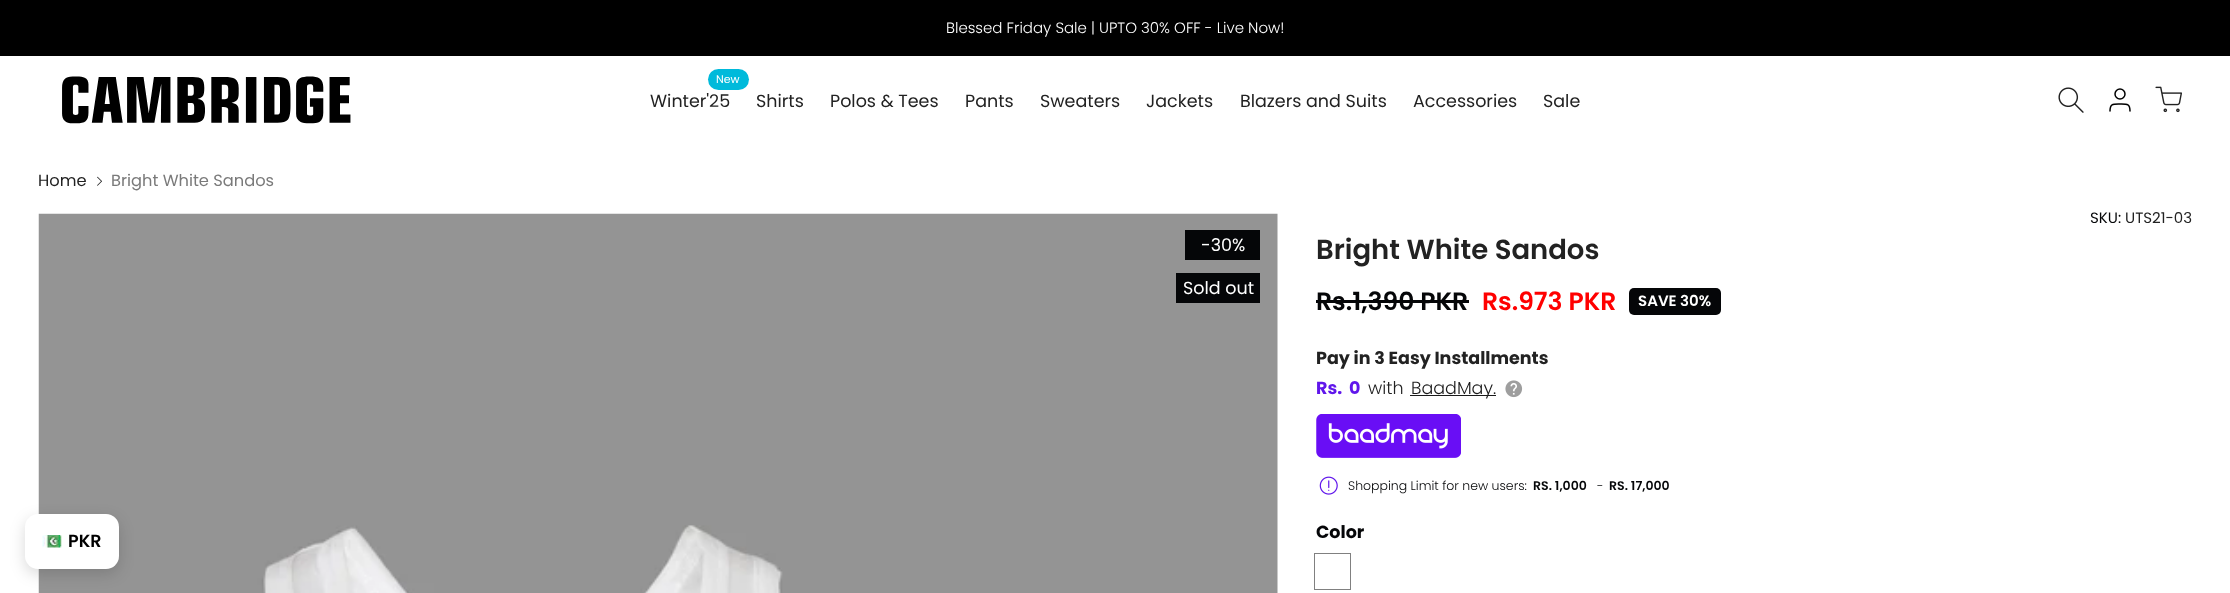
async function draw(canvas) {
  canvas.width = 2230;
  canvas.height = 593;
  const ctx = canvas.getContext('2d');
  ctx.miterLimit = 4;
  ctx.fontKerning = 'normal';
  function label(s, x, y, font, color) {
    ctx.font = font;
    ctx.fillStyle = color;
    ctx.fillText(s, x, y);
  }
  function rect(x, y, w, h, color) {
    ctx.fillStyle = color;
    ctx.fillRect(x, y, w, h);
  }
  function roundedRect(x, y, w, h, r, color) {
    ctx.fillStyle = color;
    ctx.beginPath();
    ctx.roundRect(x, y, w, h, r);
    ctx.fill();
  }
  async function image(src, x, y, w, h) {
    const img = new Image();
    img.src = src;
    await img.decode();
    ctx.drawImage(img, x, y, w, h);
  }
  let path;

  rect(0, 0, 2230, 593, '#fff');
  rect(0, 0, 2230, 56, '#000');
  label('Blessed Friday Sale | UPTO 30% OFF - Live Now!', 946, 33, '300 15px Poppins', '#fff');
  await image('assets/img1.png', 62, 76, 289, 48);
  roundedRect(708, 69, 41, 21, 10.5, '#00badb');
  label('New', 716, 83, '11px Poppins', '#fff');
  label('Winter\'25', 650, 107, '17.5px Poppins', '#222');
  label('Shirts', 756, 107, '17.5px Poppins', '#222');
  label('Polos & Tees', 830, 107, '17.5px Poppins', '#222');
  label('Pants', 965, 107, '17.5px Poppins', '#222');
  label('Sweaters', 1040, 107, '17.5px Poppins', '#222');
  label('Jackets', 1146, 107, '17.5px Poppins', '#222');
  label('Blazers and Suits', 1240, 107, '17.5px Poppins', '#222');
  label('Accessories', 1413, 107, '17.5px Poppins', '#222');
  label('Sale', 1543, 107, '17.5px Poppins', '#222');
  await image('assets/img2.png', 2058, 87, 26, 26);
  ctx.beginPath();
  ctx.arc(2120, 94, 5, 0, 2 * Math.PI);
  ctx.strokeStyle = '#000';
  ctx.lineWidth = 1.5;
  ctx.stroke();
  path = new Path2D('M2130 111C2130 103.5 2127 104 2120 104C2113 104 2110 103.5 2110 111');
  ctx.lineCap = 'round';
  ctx.lineJoin = 'round';
  ctx.stroke(path);
  await image('assets/img3.png', 2155, 86, 27, 27);
  label('Home', 38, 186, '16.25px Poppins', '#222');
  await image('assets/img4.png', 97, 176, 5, 10);
  label('Bright White Sandos', 111, 186, '16.25px Poppins', '#7a7a7a');
  await image('assets/img5.png', 38, 213, 1240, 380);
  rect(1185, 230, 75, 30, '#050608');
  label('-30%', 1201, 251, '17.5px Poppins', '#fff');
  rect(1176, 273, 84, 30, '#050608');
  label('Sold out', 1183, 294, '17.5px Poppins', '#fff');
  label('SKU:', 2090, 223, '15px Poppins', '#050608');
  label('UTS21-03', 2125, 223, '15px Poppins', '#222');
  label('Bright White Sandos', 1316, 259, '600 27.5px Poppins', '#222');
  label('Rs.1,390 PKR', 1316, 310, '600 25px Poppins', '#050608');
  rect(1316, 300, 153, 3, '#050608');
  label('Rs.973 PKR', 1482, 310, '600 25px Poppins', '#f00');
  roundedRect(1629, 288, 92, 27, 5, '#050608');
  label('SAVE 30%', 1638, 306, '600 15px Poppins', '#fff');
  label('Pay in 3 Easy Installments', 1316, 364, 'bold 17.5px Poppins', '#222');
  label('Rs.', 1316, 394, 'bold 17.5px Poppins', '#6016eb');
  label('0', 1349, 394, 'bold 17.5px Poppins', '#6016eb');
  label('with', 1368, 394, '300 17.5px Poppins', '#222');
  rect(1410, 395, 86, 1, '#1a1a1a');
  label('BaadMay.', 1411, 394, '300 17.5px Poppins', '#1a1a1a');
  await image('assets/img6.png', 1505, 380, 18, 18);
  await image('assets/img7.png', 1316, 414, 145, 44);
  await image('assets/img8.png', 1319, 476, 19, 19);
  label('Shopping Limit for new users:', 1348, 490, '300 12.5px Poppins', '#050608');
  label('RS. 1,000', 1533, 490, '600 12.5px Poppins', '#050608');
  label('-', 1597, 490, '300 12.5px Poppins', '#050608');
  label('RS. 17,000', 1609, 490, '600 12.5px Poppins', '#050608');
  label('Color', 1316, 538, 'bold 17.5px Poppins', '#050608');
  ctx.strokeStyle = '#808080';
  ctx.lineWidth = 1;
  ctx.lineJoin = 'miter';
  ctx.strokeRect(1314.5, 553.5, 36, 36);
  ctx.fillStyle = '#00000026';
  ctx.filter = 'blur(7.5px)';
  ctx.beginPath();
  ctx.roundRect(25, 519, 94, 55, 13);
  ctx.fill();
  ctx.filter = 'none';
  roundedRect(25, 514, 94, 55, 13, '#fff');
  await image('assets/img9.png', 42, 535, 20, 13);
  label('PKR', 68, 547, '600 17.5px Poppins', '#000');
}

draw(document.querySelector('canvas'));
